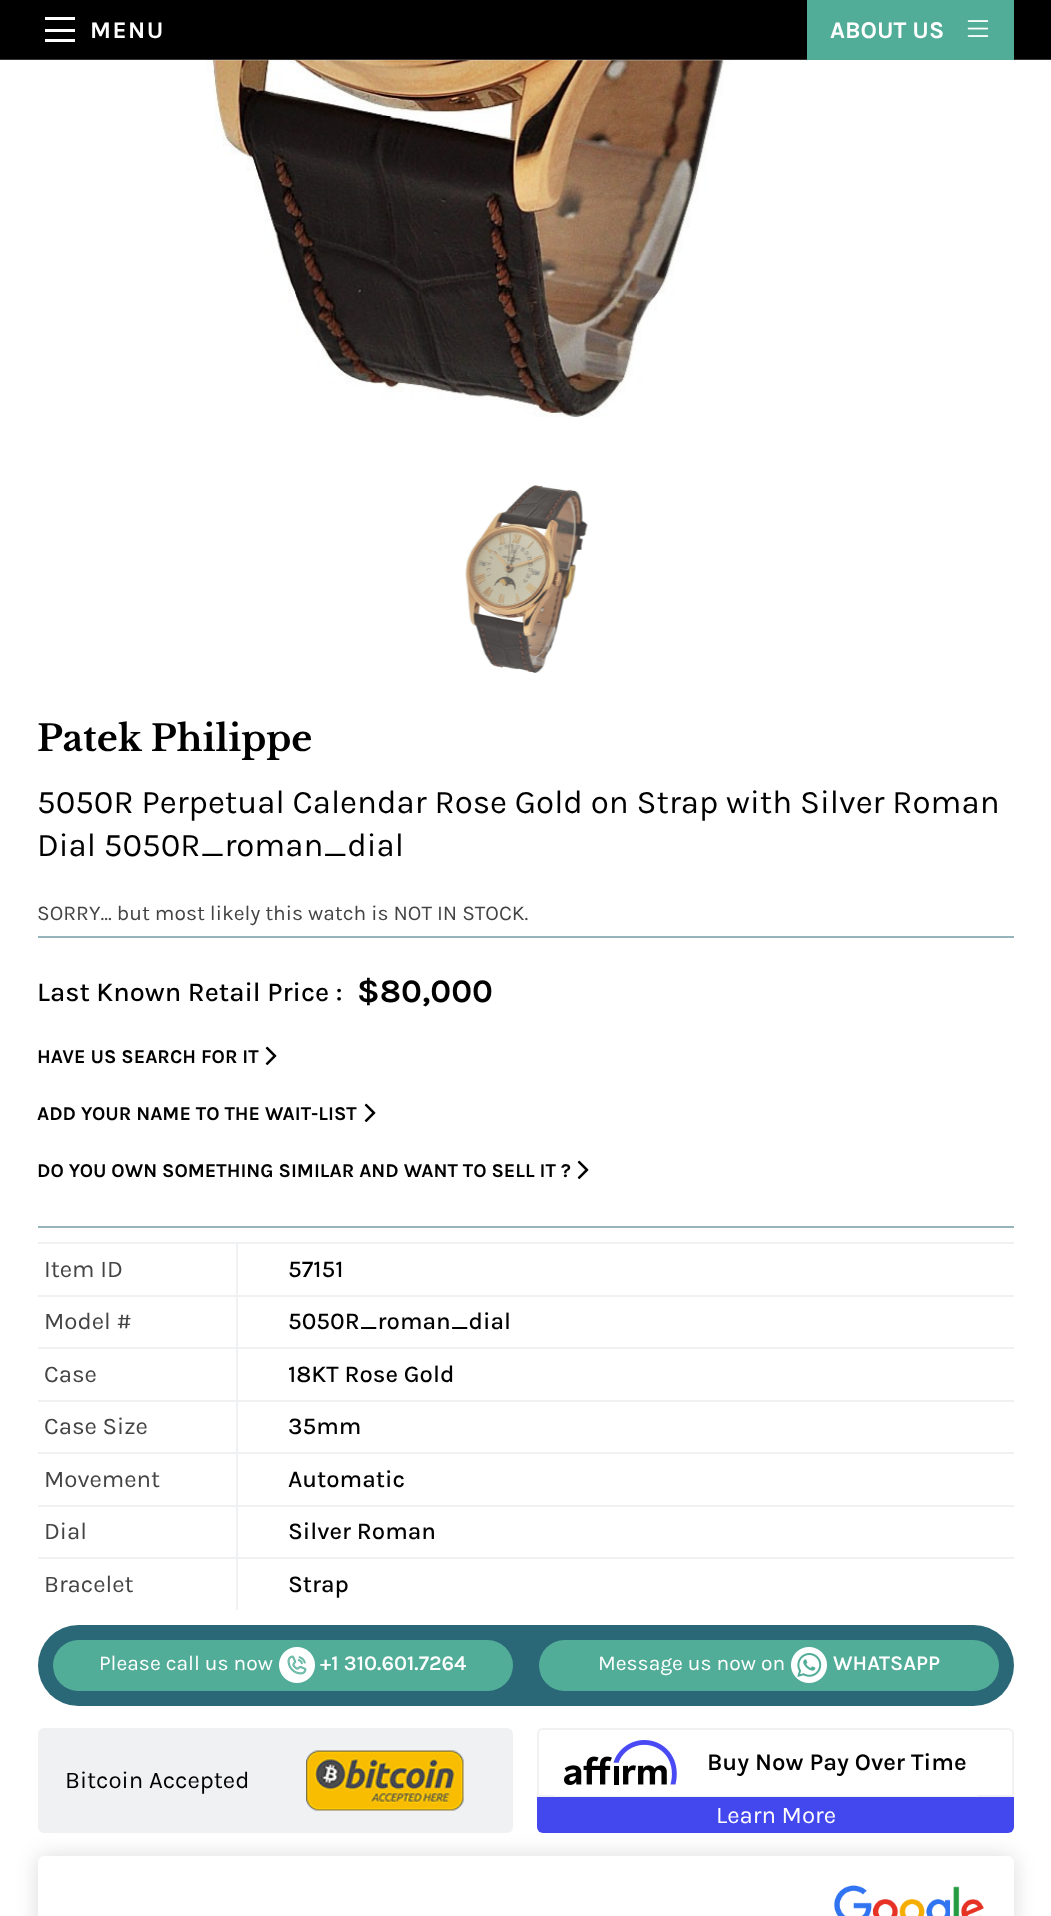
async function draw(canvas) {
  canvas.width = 1051;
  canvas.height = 1916;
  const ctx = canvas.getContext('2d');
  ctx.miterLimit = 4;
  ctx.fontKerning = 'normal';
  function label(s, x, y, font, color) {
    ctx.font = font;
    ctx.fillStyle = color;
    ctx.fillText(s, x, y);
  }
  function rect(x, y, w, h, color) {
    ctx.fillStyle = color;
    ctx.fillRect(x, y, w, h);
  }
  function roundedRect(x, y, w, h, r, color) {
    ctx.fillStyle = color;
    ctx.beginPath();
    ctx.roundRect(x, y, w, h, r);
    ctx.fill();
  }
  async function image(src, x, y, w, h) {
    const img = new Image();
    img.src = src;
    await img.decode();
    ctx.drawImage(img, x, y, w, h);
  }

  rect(0, 0, 1051, 1916, '#fff');
  rect(0, 0, 1051, 60, '#000');
  await image('assets/img2.png', 206, 60, 550, 357);
  rect(0, 59, 1051, 2, '#ffffff33');
  rect(45, 17, 30, 3, '#fff');
  rect(45, 29, 30, 3, '#fff');
  rect(45, 39, 30, 3, '#fff');
  ctx.letterSpacing = '1.5px';
  label('MENU', 90, 38, 'bold 24px Karla', '#fff');
  rect(807, 0, 207, 60, '#51ad98');
  ctx.letterSpacing = '0px';
  label('ABOUT US', 830, 38, 'bold 24px Karla', '#fff');
  await image('assets/img1.png', 967, 20, 22, 17);
  await image('assets/img3.png', 465, 485, 123, 188);
  label('Patek Philippe', 37, 751, 'bold 36px Libre Baskerville', '#000');
  label('5050R Perpetual Calendar Rose Gold on Strap with Silver Roman', 37, 813, '33px Karla', '#000');
  label('Dial 5050R_roman_dial', 37, 856, '33px Karla', '#000');
  label('SORRY... but most likely this watch is NOT IN STOCK.', 37, 920, '21px Karla', '#444');
  rect(38, 936, 976, 2, '#95b4bb');
  label('Last Known Retail Price :', 37, 1001, '500 27px Karla', '#000');
  label('$80,000', 357, 1002, 'bold 33px Karla', '#000');
  rect(38, 1226, 976, 2, '#95b4bb');
  label('HAVE US SEARCH FOR IT', 37, 1063, 'bold 19.5px Karla', '#000');
  await image('assets/img4.png', 265, 1046, 12, 19);
  label('ADD YOUR NAME TO THE WAIT-LIST', 37, 1120, 'bold 19.5px Karla', '#000');
  await image('assets/img4.png', 364, 1103, 12, 19);
  label('DO YOU OWN SOMETHING SIMILAR AND WANT TO SELL IT ?', 37, 1177, 'bold 19.5px Karla', '#000');
  await image('assets/img4.png', 577, 1160, 12, 19);
  rect(38, 1242, 976, 2, '#f0f1f3');
  rect(236, 1244, 2, 51, '#f0f1f3');
  label('Item ID', 44, 1277, '24px Karla', '#444');
  label('57151', 288, 1277, '500 24px Karla', '#000');
  rect(38, 1295, 976, 2, '#f0f1f3');
  rect(236, 1296, 2, 51, '#f0f1f3');
  label('Model #', 44, 1329, '24px Karla', '#444');
  label('5050R_roman_dial', 288, 1329, '500 24px Karla', '#000');
  rect(38, 1347, 976, 2, '#f0f1f3');
  rect(236, 1349, 2, 51, '#f0f1f3');
  label('Case', 44, 1382, '24px Karla', '#444');
  label('18KT Rose Gold', 288, 1382, '500 24px Karla', '#000');
  rect(38, 1400, 976, 2, '#f0f1f3');
  rect(236, 1401, 2, 51, '#f0f1f3');
  label('Case Size', 44, 1434, '24px Karla', '#444');
  label('35mm', 288, 1434, '500 24px Karla', '#000');
  rect(38, 1452, 976, 2, '#f0f1f3');
  rect(236, 1454, 2, 51, '#f0f1f3');
  label('Movement', 44, 1487, '24px Karla', '#444');
  label('Automatic', 288, 1487, '500 24px Karla', '#000');
  rect(38, 1505, 976, 2, '#f0f1f3');
  rect(236, 1506, 2, 51, '#f0f1f3');
  label('Dial', 44, 1539, '24px Karla', '#444');
  label('Silver Roman', 288, 1539, '500 24px Karla', '#000');
  rect(38, 1557, 976, 2, '#f0f1f3');
  rect(236, 1559, 2, 51, '#f0f1f3');
  label('Bracelet', 44, 1592, '24px Karla', '#444');
  label('Strap', 288, 1592, '500 24px Karla', '#000');
  roundedRect(38, 1625, 976, 81, 40.5, '#2a6877');
  roundedRect(53, 1640, 460, 51, 25.5, '#51ad98');
  label('Please call us now', 99, 1670, '21px Karla', '#fff');
  await image('assets/img5.png', 279, 1647, 36, 36);
  label('+1 310.601.7264', 320, 1670, '600 21px Karla', '#fff');
  roundedRect(539, 1640, 460, 51, 25.5, '#51ad98');
  label('Message us now on', 598, 1670, '21px Karla', '#fff');
  await image('assets/img6.png', 791, 1647, 36, 36);
  label('WHATSAPP', 833, 1670, '600 21px Karla', '#fff');
  roundedRect(38, 1728, 475, 105, 6, '#f0f1f3');
  label('Bitcoin Accepted', 65, 1788, '24px Karla', '#000');
  await image('assets/img7.png', 306, 1750, 158, 61);
  ctx.beginPath();
  ctx.roundRect(538, 1729, 475, 67, [5, 5, 0, 0]);
  ctx.strokeStyle = '#f0f1f3';
  ctx.lineWidth = 2;
  ctx.stroke();
  rect(554, 1795, 423, 1, '#fff');
  await image('assets/img8.png', 564, 1740, 113, 45);
  label('Buy Now Pay Over Time', 707, 1770, '600 24px Karla', '#000');
  ctx.fillStyle = '#4347ee';
  ctx.beginPath();
  ctx.roundRect(537, 1797, 477, 36, [0, 0, 6, 6]);
  ctx.fill();
  label('Learn More', 716, 1823, '24px Karla', '#fff');
  ctx.fillStyle = '#00000024';
  ctx.filter = 'blur(10.5px)';
  ctx.beginPath();
  ctx.roundRect(38, 1856, 976, 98, 6);
  ctx.fill();
  ctx.filter = 'none';
  roundedRect(38, 1856, 976, 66, 6, '#fff');
  await image('assets/img9.png', 833, 1885, 151, 31);
}

draw(document.querySelector('canvas'));
